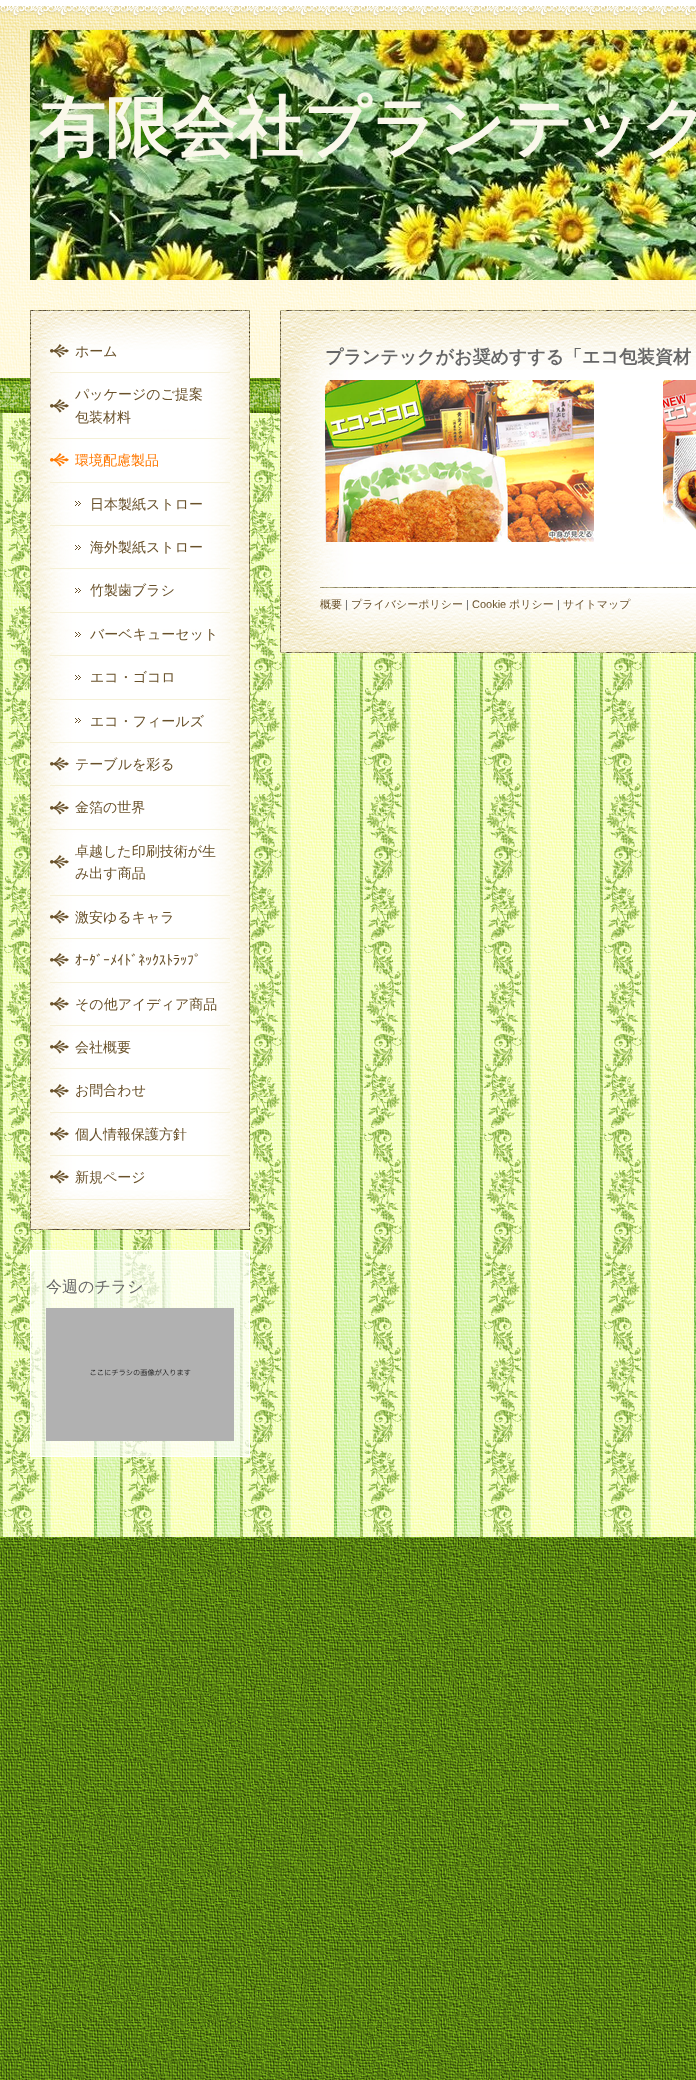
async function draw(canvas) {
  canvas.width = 696;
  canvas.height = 2080;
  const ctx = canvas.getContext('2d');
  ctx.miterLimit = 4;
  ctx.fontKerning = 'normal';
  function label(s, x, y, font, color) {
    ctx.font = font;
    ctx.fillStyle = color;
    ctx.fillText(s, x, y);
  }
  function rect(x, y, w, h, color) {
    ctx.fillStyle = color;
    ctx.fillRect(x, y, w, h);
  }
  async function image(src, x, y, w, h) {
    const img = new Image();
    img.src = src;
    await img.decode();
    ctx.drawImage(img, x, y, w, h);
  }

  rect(0, 0, 696, 2080, '#fff');
  await image('assets/img1.png', 0, 1537, 696, 543);
  await image('assets/img2.png', 0, 413, 696, 1124);
  await image('assets/img3.png', 0, 0, 696, 413);
  await image('assets/img4.png', 30, 30, 666, 250);
  label('有限会社プランテック', 39, 150, 'bold 66px WenQuanYi Zen Hei', '#faf8eb');
  await image('assets/img5.png', 30, 350, 220, 840);
  await image('assets/img6.png', 30, 1190, 220, 40);
  await image('assets/img7.png', 30, 310, 220, 40);
  await image('assets/img8.png', 50, 344, 19, 14);
  rect(50, 372, 180, 1, '#f5f0d6');
  label('ホーム', 75, 356, '500 14px WenQuanYi Zen Hei', '#69512a');
  await image('assets/img9.png', 50, 399, 19, 14);
  rect(50, 438, 180, 1, '#f5f0d6');
  label('パッケージのご提案', 75, 399, '500 14px WenQuanYi Zen Hei', '#69512a');
  label('包装材料', 75, 422, '500 14px WenQuanYi Zen Hei', '#69512a');
  await image('assets/img10.png', 50, 453, 19, 14);
  rect(50, 482, 180, 1, '#f5f0d6');
  label('環境配慮製品', 75, 465, '500 14px WenQuanYi Zen Hei', '#ff7800');
  await image('assets/img11.png', 75, 501, 6, 5);
  rect(50, 525, 180, 1, '#f5f0d6');
  label('日本製紙ストロー', 90, 509, '500 14px WenQuanYi Zen Hei', '#69512a');
  await image('assets/img11.png', 75, 545, 6, 5);
  rect(50, 568, 180, 1, '#f5f0d6');
  label('海外製紙ストロー', 90, 552, '500 14px WenQuanYi Zen Hei', '#69512a');
  await image('assets/img11.png', 75, 588, 6, 5);
  rect(50, 612, 180, 1, '#f5f0d6');
  label('竹製歯ブラシ', 90, 595, '500 14px WenQuanYi Zen Hei', '#69512a');
  await image('assets/img12.png', 75, 632, 6, 5);
  rect(50, 655, 180, 1, '#f5f0d6');
  label('バーベキューセット', 90, 639, '500 14px WenQuanYi Zen Hei', '#69512a');
  await image('assets/img11.png', 75, 675, 6, 5);
  rect(50, 699, 180, 1, '#f5f0d6');
  label('エコ・ゴコロ', 90, 682, '500 14px WenQuanYi Zen Hei', '#69512a');
  await image('assets/img13.png', 75, 718, 6, 5);
  rect(50, 742, 180, 1, '#f5f0d6');
  label('エコ・フィールズ', 90, 726, '500 14px WenQuanYi Zen Hei', '#69512a');
  await image('assets/img14.png', 50, 757, 19, 14);
  rect(50, 785, 180, 1, '#f5f0d6');
  label('テーブルを彩る', 75, 769, '500 14px WenQuanYi Zen Hei', '#69512a');
  await image('assets/img15.png', 50, 801, 19, 14);
  rect(50, 829, 180, 1, '#f5f0d6');
  label('金箔の世界', 75, 812, '500 14px WenQuanYi Zen Hei', '#69512a');
  await image('assets/img16.png', 50, 855, 19, 14);
  rect(50, 895, 180, 1, '#f5f0d6');
  label('卓越した印刷技術が生', 75, 856, '500 14px WenQuanYi Zen Hei', '#69512a');
  label('み出す商品', 75, 878, '500 14px WenQuanYi Zen Hei', '#69512a');
  await image('assets/img17.png', 50, 910, 19, 14);
  rect(50, 938, 180, 1, '#f5f0d6');
  label('激安ゆるキャラ', 75, 922, '500 14px WenQuanYi Zen Hei', '#69512a');
  await image('assets/img18.png', 50, 953, 19, 14);
  rect(50, 982, 180, 1, '#f5f0d6');
  label('ｵｰﾀﾞｰﾒｲﾄﾞﾈｯｸｽﾄﾗｯﾌﾟ', 75, 965, '14px IPAPGothic', '#69512a');
  await image('assets/img19.png', 50, 997, 19, 14);
  rect(50, 1025, 180, 1, '#f5f0d6');
  label('その他アイディア商品', 75, 1009, '500 14px WenQuanYi Zen Hei', '#69512a');
  await image('assets/img20.png', 50, 1040, 19, 14);
  rect(50, 1068, 180, 1, '#f5f0d6');
  label('会社概要', 75, 1052, '500 14px WenQuanYi Zen Hei', '#69512a');
  await image('assets/img21.png', 50, 1084, 19, 14);
  rect(50, 1112, 180, 1, '#f5f0d6');
  label('お問合わせ', 75, 1095, '500 14px WenQuanYi Zen Hei', '#69512a');
  await image('assets/img22.png', 50, 1127, 19, 14);
  rect(50, 1155, 180, 1, '#f5f0d6');
  label('個人情報保護方針', 75, 1139, '500 14px WenQuanYi Zen Hei', '#69512a');
  await image('assets/img17.png', 50, 1170, 19, 14);
  rect(50, 1199, 180, 1, '#f5f0d6');
  label('新規ページ', 75, 1182, '500 14px WenQuanYi Zen Hei', '#69512a');
  ctx.fillStyle = '#ffffffb3';
  ctx.beginPath();
  ctx.rect(30.5, 1250.5, 219, 206);
  ctx.fill();
  ctx.strokeStyle = '#fff';
  ctx.stroke();
  label('今週のチラシ', 46, 1292, '500 16px WenQuanYi Zen Hei', '#666');
  await image('assets/img23.png', 46, 1308, 188, 133);
  await image('assets/img24.png', 280, 370, 416, 223);
  await image('assets/img25.png', 280, 310, 416, 60);
  label('プランテックがお奨めすする「エコ包装資材', 325, 363, 'bold 18px WenQuanYi Zen Hei', '#666');
  await image('assets/img26.png', 325, 380, 269, 162);
  await image('assets/img27.png', 663, 380, 33, 150);
  await image('assets/img28.png', 280, 593, 416, 60);
  await image('assets/img29.png', 320, 587, 376, 1);
  label('概要', 320, 608, '500 11px WenQuanYi Zen Hei', '#69512a');
  label('|', 345, 608, '11px Liberation Sans', '#666');
  label('プライバシーポリシー', 351, 608, '500 11px WenQuanYi Zen Hei', '#69512a');
  label('|', 466, 608, '11px Liberation Sans', '#666');
  label('Cookie', 472, 608, '11px Liberation Sans', '#69512a');
  label('ポリシー', 509, 608, '500 11px WenQuanYi Zen Hei', '#69512a');
  label('|', 557, 608, '11px Liberation Sans', '#666');
  label('サイトマップ', 563, 608, '500 11px WenQuanYi Zen Hei', '#69512a');
}

draw(document.querySelector('canvas'));
